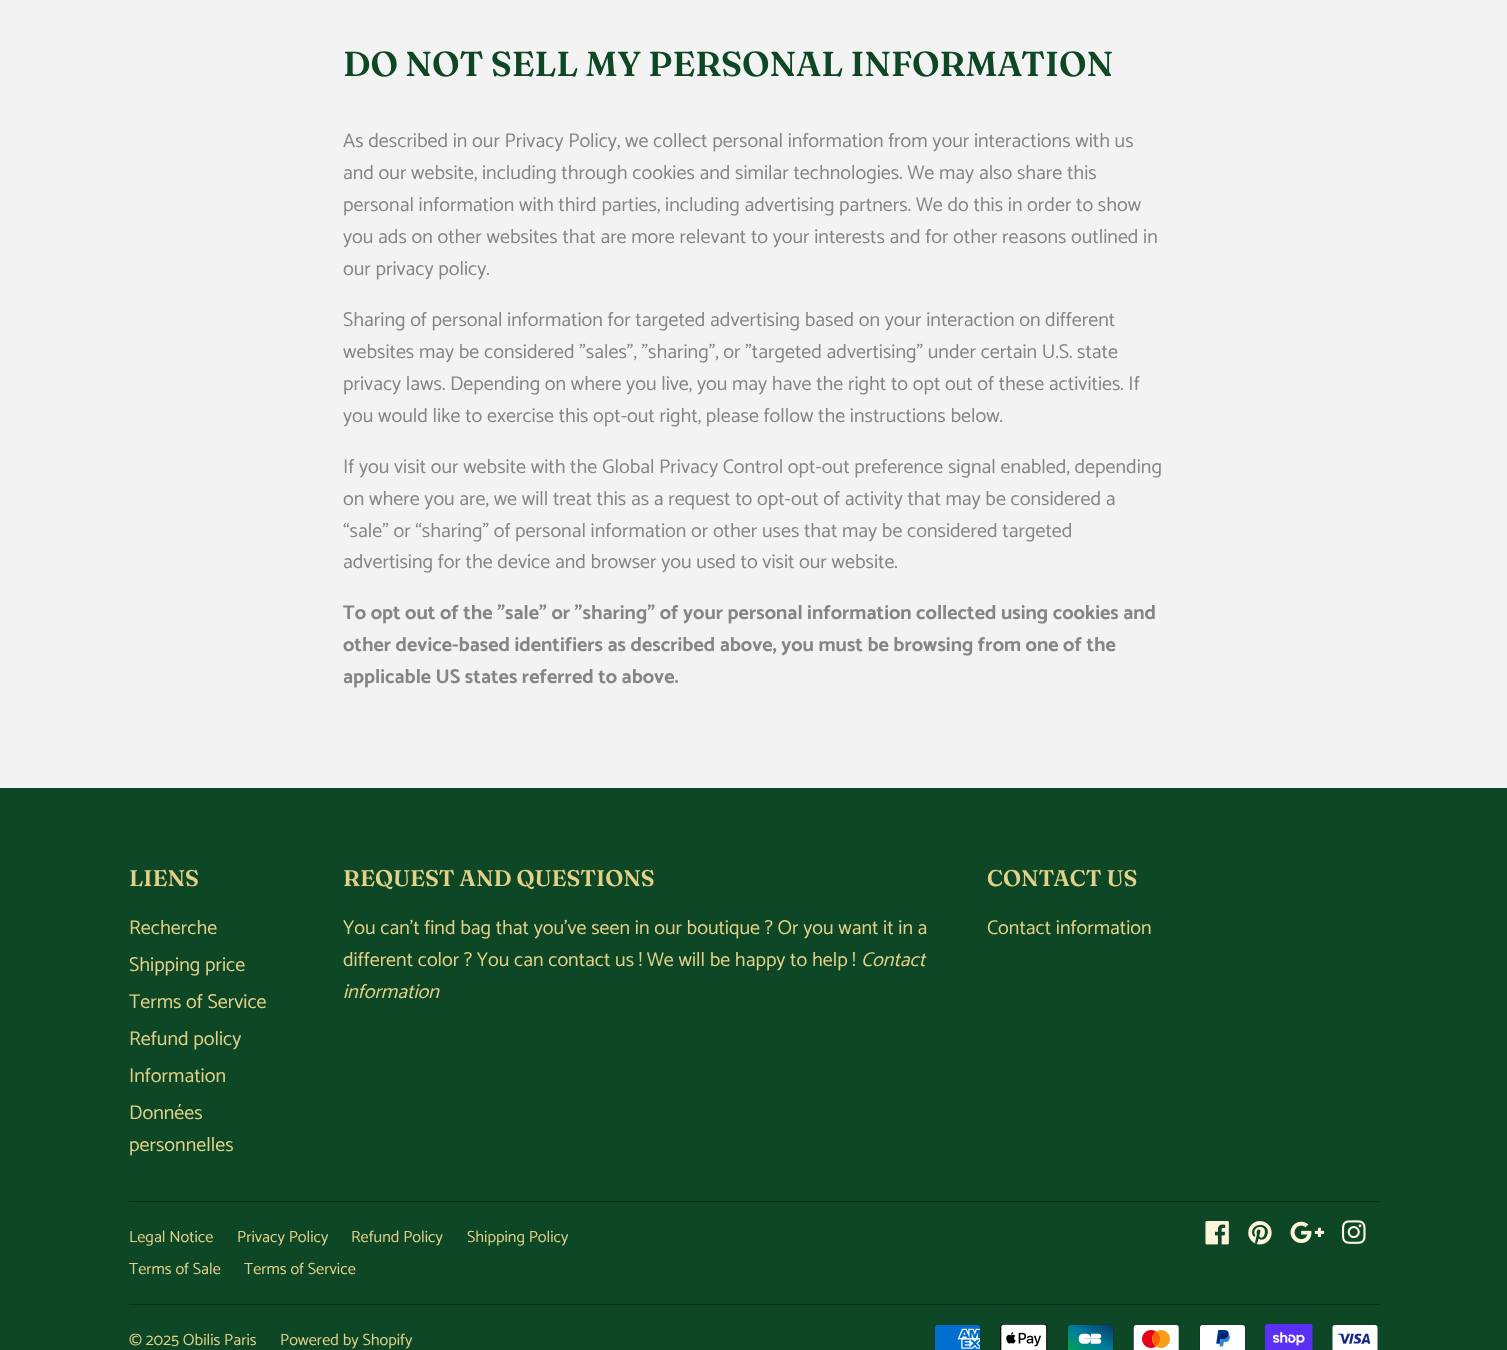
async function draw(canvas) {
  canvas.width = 1507;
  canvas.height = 1350;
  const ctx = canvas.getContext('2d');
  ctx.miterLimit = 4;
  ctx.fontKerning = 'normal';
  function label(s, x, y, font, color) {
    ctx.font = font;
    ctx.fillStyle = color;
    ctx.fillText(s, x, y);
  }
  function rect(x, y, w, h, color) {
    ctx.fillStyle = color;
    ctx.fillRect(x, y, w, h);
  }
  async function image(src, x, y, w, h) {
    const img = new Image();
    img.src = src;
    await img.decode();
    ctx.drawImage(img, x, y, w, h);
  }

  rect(0, 0, 1507, 1350, '#f3f3f3');
  label('DO NOT SELL MY PERSONAL INFORMATION', 343, 76, '600 34.7px "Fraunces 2"', '#0d4725');
  label('As described in our Privacy Policy, we collect personal information from your interactions with us', 343, 147, '20px Catamaran', '#858585');
  label('and our website, including through cookies and similar technologies. We may also share this', 343, 179, '20px Catamaran', '#858585');
  label('personal information with third parties, including advertising partners. We do this in order to show', 343, 211, '20px Catamaran', '#858585');
  label('you ads on other websites that are more relevant to your interests and for other reasons outlined in', 343, 243, '20px Catamaran', '#858585');
  label('our privacy policy.', 343, 275, '20px Catamaran', '#858585');
  label('Sharing of personal information for targeted advertising based on your interaction on different', 343, 326, '20px Catamaran', '#858585');
  label('websites may be considered "sales", "sharing", or "targeted advertising" under certain U.S. state', 343, 358, '20px Catamaran', '#858585');
  label('privacy laws. Depending on where you live, you may have the right to opt out of these activities. If', 343, 390, '20px Catamaran', '#858585');
  label('you would like to exercise this opt-out right, please follow the instructions below.', 343, 422, '20px Catamaran', '#858585');
  label('If you visit our website with the Global Privacy Control opt-out preference signal enabled, depending', 343, 473, '20px Catamaran', '#858585');
  label('on where you are, we will treat this as a request to opt-out of activity that may be considered a', 343, 505, '20px Catamaran', '#858585');
  label('“sale” or “sharing” of personal information or other uses that may be considered targeted', 343, 537, '20px Catamaran', '#858585');
  label('advertising for the device and browser you used to visit our website.', 343, 568, '20px Catamaran', '#858585');
  label('To opt out of the "sale" or "sharing" of your personal information collected using cookies and', 343, 619, 'bold 20px Catamaran', '#858585');
  label('other device-based identifiers as described above, you must be browsing from one of the', 343, 651, 'bold 20px Catamaran', '#858585');
  label('applicable US states referred to above.', 343, 683, 'bold 20px Catamaran', '#858585');
  rect(0, 788, 1507, 562, '#0d4725');
  label('LIENS', 129, 886, '600 22.7px Fraunces', '#e3d18a');
  label('Recherche', 129, 934, '20px Catamaran', '#e3d18a');
  label('Shipping price', 129, 971, '20px Catamaran', '#e3d18a');
  label('Terms of Service', 129, 1008, '20px Catamaran', '#e3d18a');
  label('Refund policy', 129, 1045, '20px Catamaran', '#e3d18a');
  label('Information', 129, 1082, '20px Catamaran', '#e3d18a');
  label('Données', 129, 1119, '20px Catamaran', '#e3d18a');
  label('personnelles', 129, 1151, '20px Catamaran', '#e3d18a');
  label('REQUEST AND QUESTIONS', 343, 886, '600 22.7px Fraunces', '#e3d18a');
  label('You can\'t find bag that you\'ve seen in our boutique ? Or you want it in a', 343, 934, '20px Catamaran', '#e3d18a');
  label('different color ? You can contact us ! We will be happy to help !', 343, 966, '20px Catamaran', '#e3d18a');
  label('Contact', 861, 966, 'italic 20px Catamaran', '#e3d18a');
  label('information', 343, 998, 'italic 20px Catamaran', '#e3d18a');
  label('CONTACT US', 987, 886, '600 22.7px Fraunces', '#e3d18a');
  label('Contact information', 987, 934, '20px Catamaran', '#e3d18a');
  rect(129, 1201, 1250, 1, '#09311a');
  label('Legal Notice', 129, 1242, '16.25px Catamaran', '#e3d18a');
  label('Privacy Policy', 237, 1242, '16.25px Catamaran', '#e3d18a');
  label('Refund Policy', 351, 1242, '16.25px Catamaran', '#e3d18a');
  label('Shipping Policy', 467, 1242, '16.25px Catamaran', '#e3d18a');
  label('Terms of Sale', 129, 1274, '16.25px Catamaran', '#e3d18a');
  label('Terms of Service', 244, 1274, '16.25px Catamaran', '#e3d18a');
  await image('assets/img1.png', 1205, 1221, 24, 24);
  await image('assets/img2.png', 1248, 1221, 24, 24);
  await image('assets/img3.png', 1290, 1221, 35, 23);
  await image('assets/img4.png', 1341, 1220, 25, 24);
  rect(129, 1304, 1250, 1, '#09311a');
  label('© 2025 Obilis Paris', 129, 1345, '16.25px Catamaran', '#e3d18a');
  label('Powered by Shopify', 280, 1345, '16.25px Catamaran', '#e3d18a');
  await image('assets/img5.png', 934, 1324, 47, 26);
  await image('assets/img6.png', 1000, 1324, 48, 26);
  await image('assets/img7.png', 1066, 1324, 48, 26);
  await image('assets/img8.png', 1133, 1324, 47, 26);
  await image('assets/img9.png', 1199, 1324, 47, 26);
  await image('assets/img10.png', 1265, 1324, 48, 26);
  await image('assets/img11.png', 1332, 1324, 46, 26);
}

draw(document.querySelector('canvas'));
